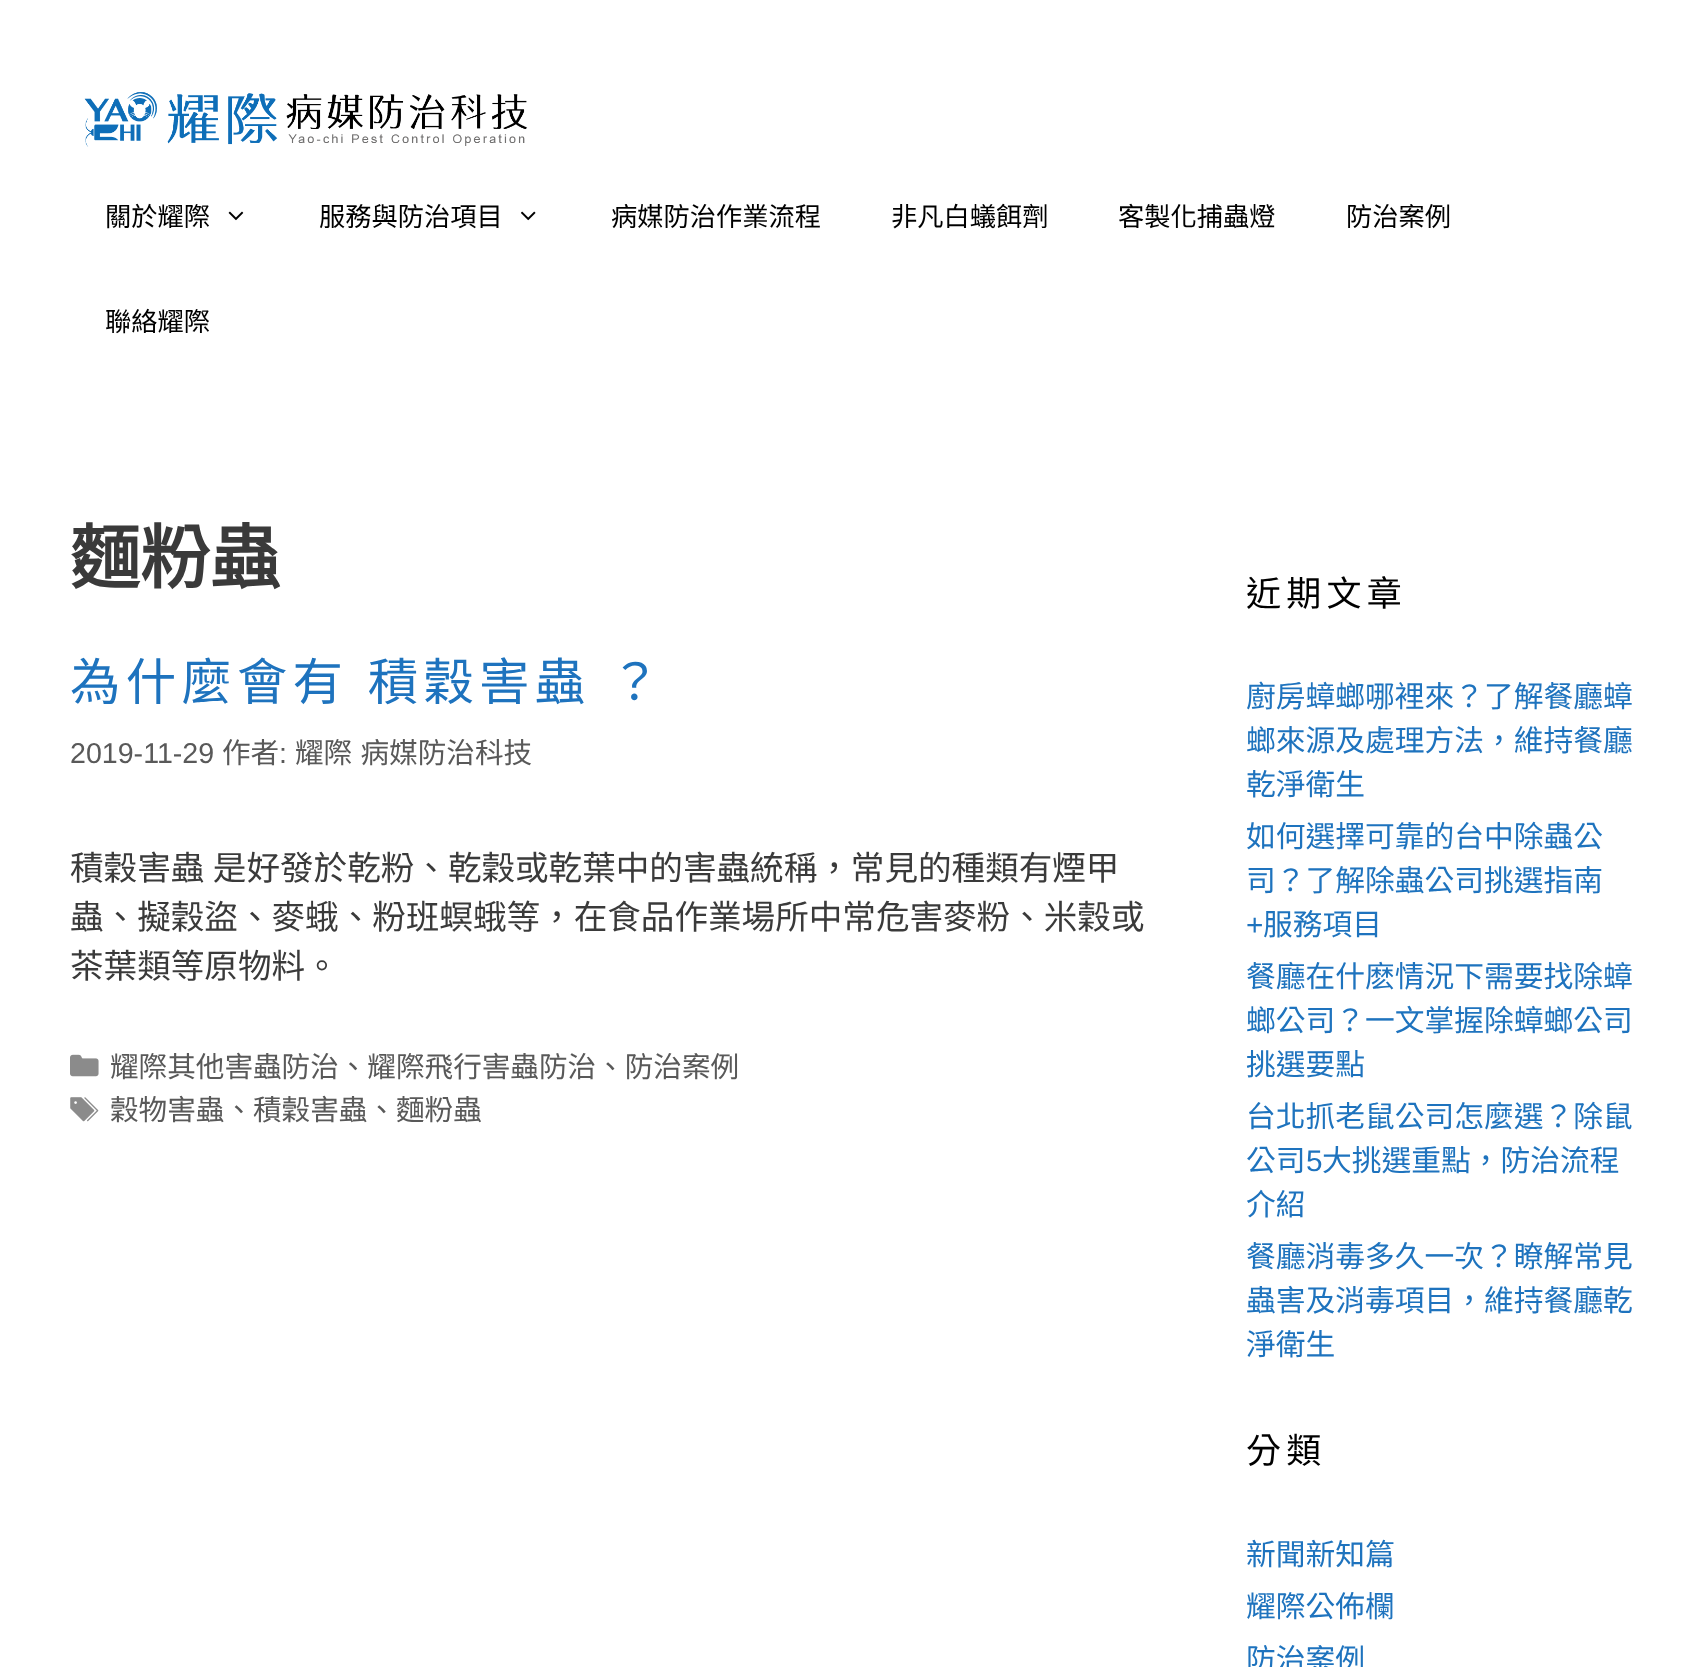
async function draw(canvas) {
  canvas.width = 1708;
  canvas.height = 1667;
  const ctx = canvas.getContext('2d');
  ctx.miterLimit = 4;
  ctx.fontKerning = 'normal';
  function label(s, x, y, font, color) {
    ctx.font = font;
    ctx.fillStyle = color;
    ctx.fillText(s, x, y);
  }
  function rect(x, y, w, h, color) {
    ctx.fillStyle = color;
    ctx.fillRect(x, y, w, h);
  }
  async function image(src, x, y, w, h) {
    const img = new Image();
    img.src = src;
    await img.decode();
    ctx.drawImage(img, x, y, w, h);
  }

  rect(0, 0, 1708, 1667, '#fff');
  await image('assets/img1.png', 84, 92, 444, 55);
  label('關於耀際', 105, 226, '26.25px Noto Sans CJK TC', '#000');
  await image('assets/img2.png', 228, 211, 16, 10);
  label('服務與防治項目', 319, 226, '26.25px Noto Sans CJK TC', '#000');
  await image('assets/img3.png', 521, 211, 15, 10);
  label('病媒防治作業流程', 611, 226, '26.25px Noto Sans CJK TC', '#000');
  label('非凡白蟻餌劑', 891, 226, '26.25px Noto Sans CJK TC', '#000');
  label('客製化捕蟲燈', 1118, 226, '26.25px Noto Sans CJK TC', '#000');
  label('防治案例', 1346, 226, '26.25px Noto Sans CJK TC', '#000');
  label('聯絡耀際', 105, 331, '26.25px Noto Sans CJK TC', '#000');
  label('麵粉蟲', 70, 583, 'bold 70px Noto Sans CJK TC', '#3a3a3a');
  ctx.letterSpacing = '5.25px';
  ctx.wordSpacing = '3px';
  label('為什麼會有 積穀害蟲 ？', 70, 700, '50.4px Noto Sans CJK TC', '#1e73be');
  ctx.letterSpacing = '0px';
  ctx.wordSpacing = '0px';
  label('2019-11-29', 70, 763, '28.6px Liberation Sans', '#595959');
  label('作者', 222, 763, '28.6px Noto Sans CJK TC', '#595959');
  label(':', 279, 763, '28.6px Liberation Sans', '#595959');
  ctx.wordSpacing = '2px';
  label('耀際 病媒防治科技', 295, 763, '28.6px Noto Sans CJK TC', '#595959');
  ctx.wordSpacing = '1px';
  label('積穀害蟲 是好發於乾粉、乾穀或乾葉中的害蟲統稱，常見的種類有煙甲', 70, 880, '33.6px Noto Sans CJK TC', '#3a3a3a');
  ctx.wordSpacing = '0px';
  label('蟲、擬穀盜、麥蛾、粉班螟蛾等，在食品作業場所中常危害麥粉、米穀或', 70, 929, '33.6px Noto Sans CJK TC', '#3a3a3a');
  label('茶葉類等原物料。', 70, 978, '33.6px Noto Sans CJK TC', '#3a3a3a');
  await image('assets/img4.png', 70, 1054, 29, 23);
  label('耀際其他害蟲防治、耀際飛行害蟲防治、防治案例', 110, 1077, '28.6px Noto Sans CJK TC', '#595959');
  await image('assets/img5.png', 70, 1097, 29, 25);
  label('穀物害蟲、積穀害蟲、麵粉蟲', 110, 1120, '28.6px Noto Sans CJK TC', '#595959');
  ctx.letterSpacing = '5.25px';
  label('近期文章', 1246, 606, '35px Noto Sans CJK TC', '#000');
  ctx.letterSpacing = '0px';
  label('廚房蟑螂哪裡來？了解餐廳蟑', 1246, 707, '29.75px Noto Sans CJK TC', '#1e73be');
  label('螂來源及處理方法，維持餐廳', 1246, 751, '29.75px Noto Sans CJK TC', '#1e73be');
  label('乾淨衛生', 1246, 795, '29.75px Noto Sans CJK TC', '#1e73be');
  label('如何選擇可靠的台中除蟲公', 1246, 847, '29.75px Noto Sans CJK TC', '#1e73be');
  label('司？了解除蟲公司挑選指南', 1246, 891, '29.75px Noto Sans CJK TC', '#1e73be');
  label('+', 1246, 935, '29.75px Liberation Sans', '#1e73be');
  label('服務項目', 1263, 935, '29.75px Noto Sans CJK TC', '#1e73be');
  label('餐廳在什麽情況下需要找除蟑', 1246, 987, '29.75px Noto Sans CJK TC', '#1e73be');
  label('螂公司？一文掌握除蟑螂公司', 1246, 1031, '29.75px Noto Sans CJK TC', '#1e73be');
  label('挑選要點', 1246, 1075, '29.75px Noto Sans CJK TC', '#1e73be');
  label('台北抓老鼠公司怎麼選？除鼠', 1246, 1127, '29.75px Noto Sans CJK TC', '#1e73be');
  label('公司', 1246, 1171, '29.75px Noto Sans CJK TC', '#1e73be');
  label('5', 1306, 1171, '29.75px Liberation Sans', '#1e73be');
  label('大挑選重點，防治流程', 1322, 1171, '29.75px Noto Sans CJK TC', '#1e73be');
  label('介紹', 1246, 1215, '29.75px Noto Sans CJK TC', '#1e73be');
  label('餐廳消毒多久一次？瞭解常見', 1246, 1267, '29.75px Noto Sans CJK TC', '#1e73be');
  label('蟲害及消毒項目，維持餐廳乾', 1246, 1311, '29.75px Noto Sans CJK TC', '#1e73be');
  label('淨衛生', 1246, 1355, '29.75px Noto Sans CJK TC', '#1e73be');
  ctx.letterSpacing = '5.25px';
  label('分類', 1246, 1463, '35px Noto Sans CJK TC', '#000');
  ctx.letterSpacing = '0px';
  label('新聞新知篇', 1246, 1565, '29.75px Noto Sans CJK TC', '#1e73be');
  label('耀際公佈欄', 1246, 1617, '29.75px Noto Sans CJK TC', '#1e73be');
  label('防治案例', 1246, 1670, '29.75px Noto Sans CJK TC', '#1e73be');
}

draw(document.querySelector('canvas'));
